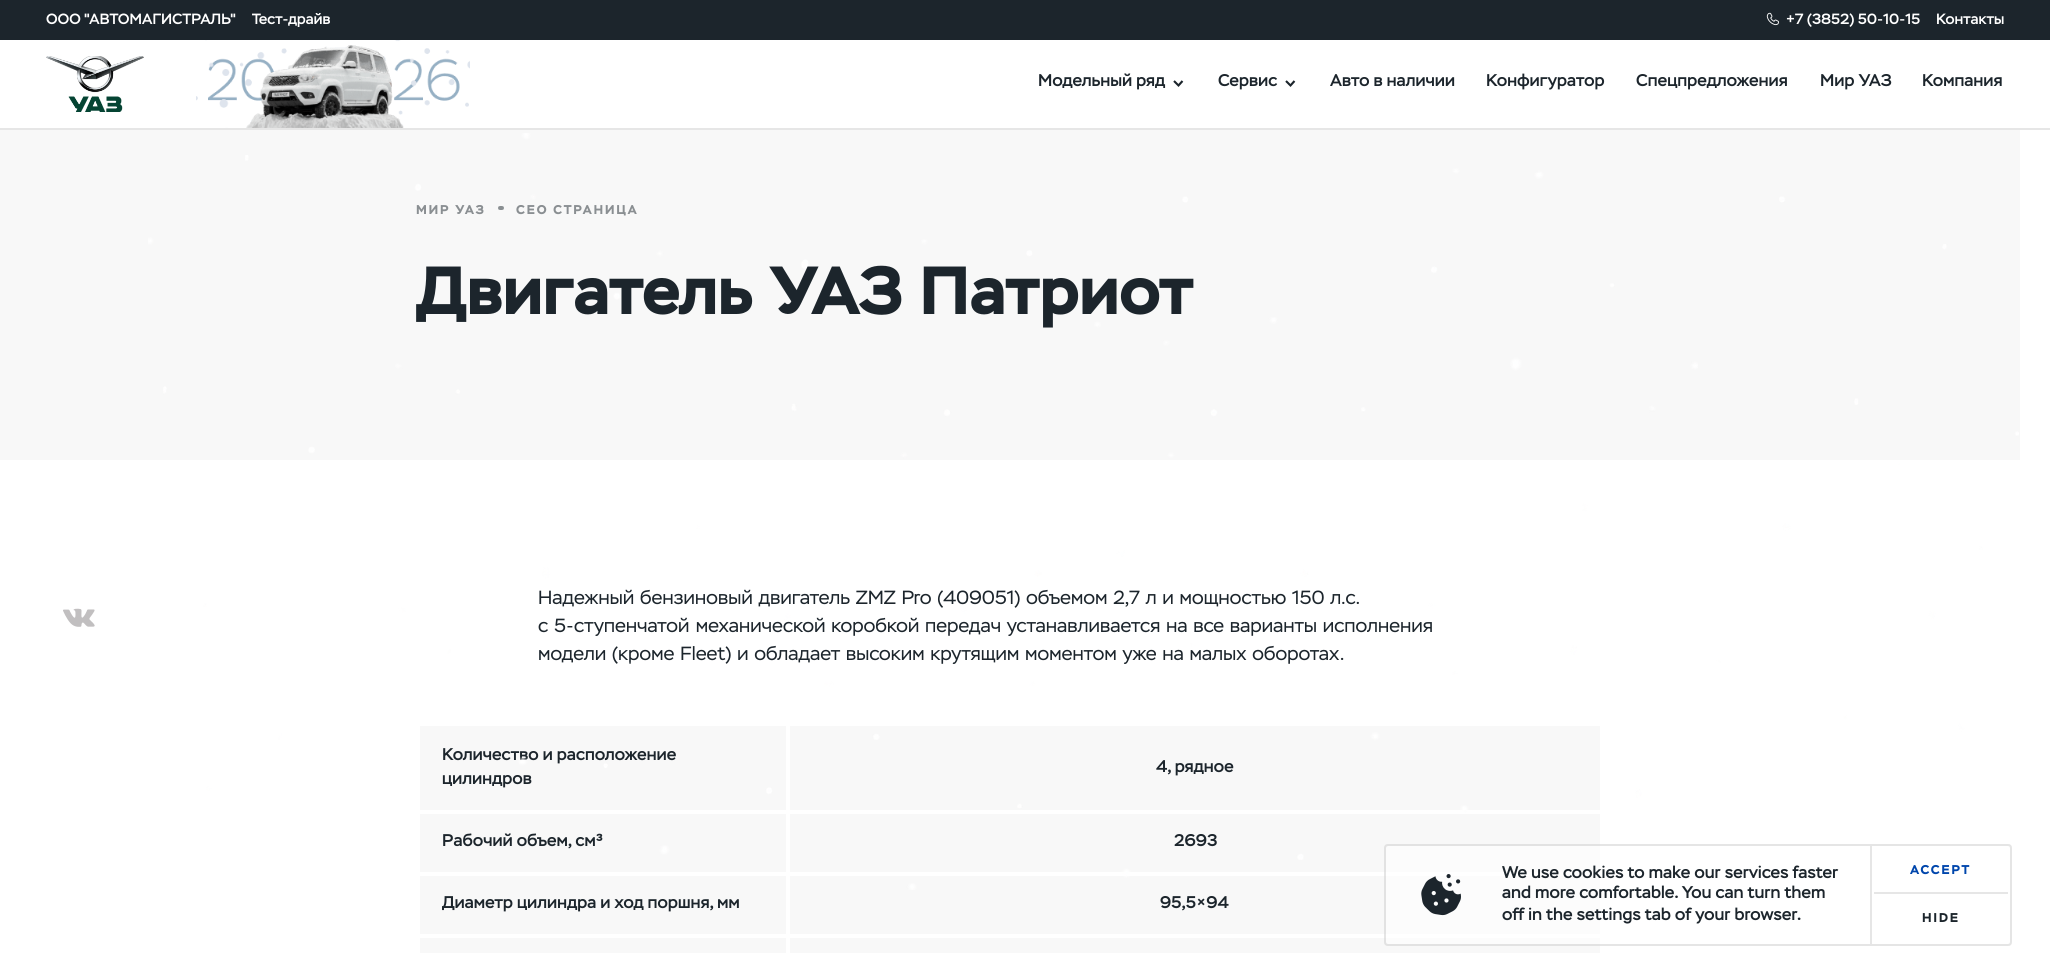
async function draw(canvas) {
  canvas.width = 2050;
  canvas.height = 953;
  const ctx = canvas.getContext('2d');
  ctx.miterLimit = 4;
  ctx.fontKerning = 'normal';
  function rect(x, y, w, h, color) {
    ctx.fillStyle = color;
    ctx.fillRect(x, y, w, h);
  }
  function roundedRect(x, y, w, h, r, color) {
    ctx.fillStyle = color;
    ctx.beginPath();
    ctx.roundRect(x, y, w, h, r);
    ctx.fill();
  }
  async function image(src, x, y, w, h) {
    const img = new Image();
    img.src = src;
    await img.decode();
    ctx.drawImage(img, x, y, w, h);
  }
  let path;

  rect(0, 0, 2050, 953, '#fff');
  rect(0, 0, 2050, 40, '#1c252c');
  await image('assets/img1.png', 46, 13, 190, 12);
  await image('assets/img2.png', 252, 13, 78, 14);
  await image('assets/img3.png', 1766, 12, 13, 14);
  await image('assets/img4.png', 1786, 13, 134, 14);
  await image('assets/img5.png', 1937, 13, 67, 12);
  rect(0, 128, 2050, 2, '#e6e6e6');
  await image('assets/img6.png', 46, 56, 98, 56);
  await image('assets/img7.png', 196, 40, 274, 88);
  await image('assets/img8.png', 1039, 73, 127, 17);
  path = new Path2D('M1182.5 81L1178.5 85.5L1174 81');
  ctx.strokeStyle = '#1c252c';
  ctx.lineWidth = 2.1;
  ctx.stroke(path);
  await image('assets/img9.png', 1218, 74, 60, 16);
  path = new Path2D('M1294.5 81L1290.5 85.5L1286 81');
  ctx.stroke(path);
  await image('assets/img10.png', 1330, 74, 125, 13);
  await image('assets/img11.png', 1487, 73, 118, 17);
  await image('assets/img12.png', 1636, 74, 151, 16);
  await image('assets/img13.png', 1821, 74, 71, 16);
  await image('assets/img14.png', 1923, 74, 79, 13);
  rect(0, 130, 2020, 330, '#f8f8f8');
  await image('assets/img19.png', 539, 589, 820, 19);
  await image('assets/img20.png', 538, 621, 10, 12);
  await image('assets/img21.png', 554, 617, 135, 19);
  await image('assets/img22.png', 696, 617, 736, 19);
  await image('assets/img23.png', 539, 645, 805, 19);
  rect(420, 726, 366, 84, '#f8f8f8');
  await image('assets/img24.png', 443, 748, 233, 16);
  await image('assets/img25.png', 442, 775, 90, 13);
  rect(790, 726, 810, 84, '#f8f8f8');
  await image('assets/img26.png', 1156, 760, 78, 16);
  rect(420, 814, 366, 58, '#f8f8f8');
  await image('assets/img27.png', 443, 833, 160, 16);
  rect(790, 814, 810, 58, '#f8f8f8');
  await image('assets/img28.png', 1174, 834, 43, 13);
  rect(420, 876, 366, 58, '#f8f8f8');
  rect(790, 876, 810, 58, '#f8f8f8');
  await image('assets/img32.png', 163, 155, 1856, 705);
  await image('assets/img31.png', 148, 133, 1550, 757);
  await image('assets/img15.png', 416, 205, 68, 10);
  roundedRect(498, 206, 6, 4, 2, '#8a8f92');
  await image('assets/img16.png', 516, 205, 121, 11);
  await image('assets/img17.png', 416, 265, 778, 63);
  await image('assets/img18.png', 63, 608, 32, 19);
  await image('assets/img29.png', 442, 896, 297, 16);
  await image('assets/img30.png', 1160, 896, 69, 15);
  rect(420, 938, 366, 15, '#f8f8f8');
  rect(790, 938, 810, 15, '#f8f8f8');
  roundedRect(1384, 844, 628, 102, 4, '#ffffff80');
  ctx.beginPath();
  ctx.roundRect(1385, 845, 626, 100, 3);
  ctx.strokeStyle = '#0000001a';
  ctx.lineWidth = 2;
  ctx.stroke();
  await image('assets/img33.png', 1421, 874, 40, 42);
  await image('assets/img34.png', 1502, 865, 337, 14);
  await image('assets/img35.png', 1502, 885, 323, 14);
  await image('assets/img36.png', 1502, 907, 299, 17);
  rect(1870, 846, 2, 98, '#e6e6e6');
  rect(1874, 892, 134, 2, '#e6e6e6');
  await image('assets/img37.png', 1910, 864, 60, 11);
  await image('assets/img38.png', 1922, 913, 36, 9);
}

draw(document.querySelector('canvas'));
